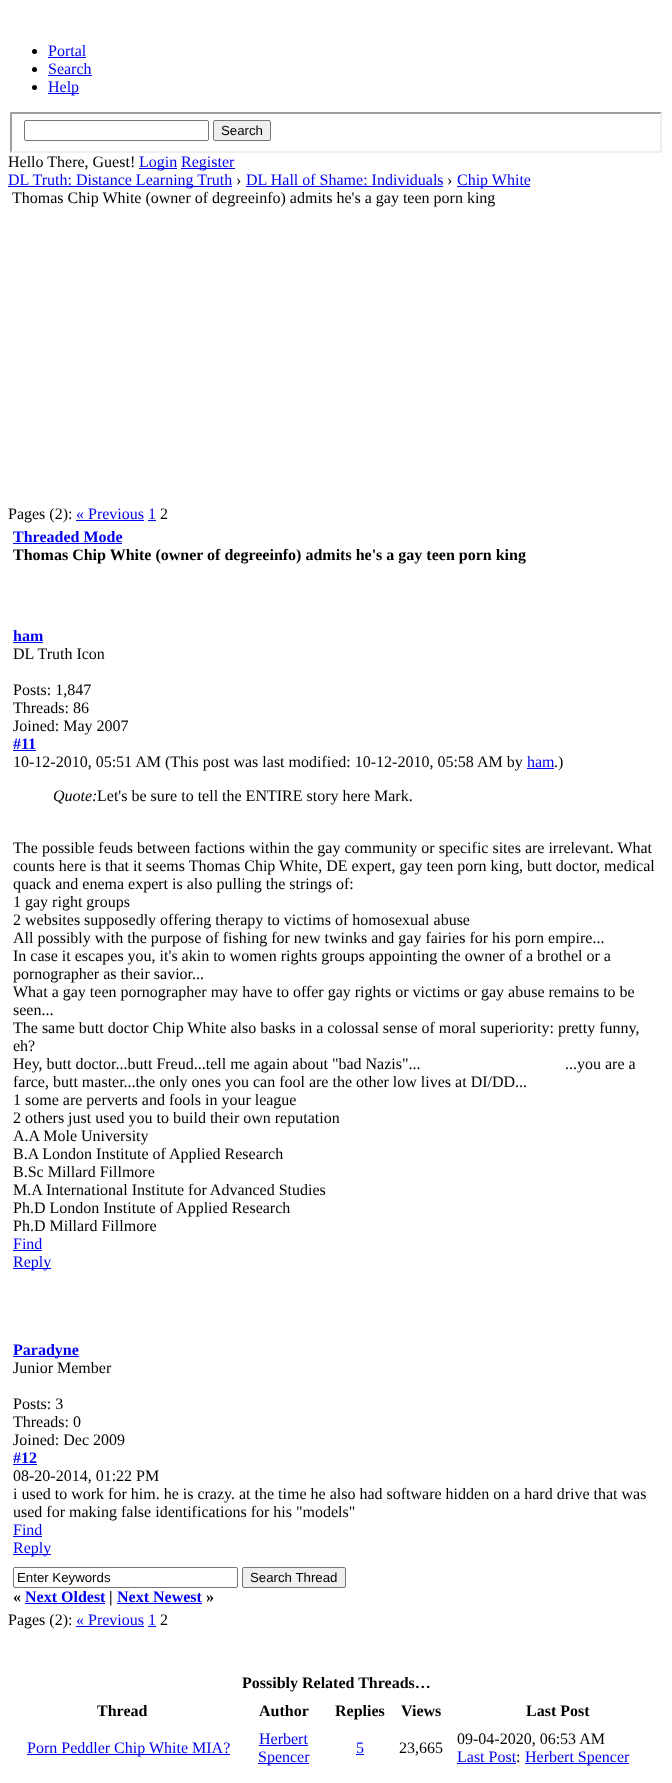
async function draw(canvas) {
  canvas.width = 672;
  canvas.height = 1783;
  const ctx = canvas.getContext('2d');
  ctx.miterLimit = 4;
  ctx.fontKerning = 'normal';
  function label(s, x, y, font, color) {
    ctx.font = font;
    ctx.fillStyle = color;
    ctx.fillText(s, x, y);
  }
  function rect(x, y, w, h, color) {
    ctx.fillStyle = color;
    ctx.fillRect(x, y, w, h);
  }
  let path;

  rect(0, 0, 672, 1783, '#fff');
  ctx.fillStyle = '#000';
  ctx.beginPath();
  ctx.arc(34.5, 51.5, 2.5, 0, 2 * Math.PI);
  ctx.fill();
  label('Portal', 48, 56, '16px Liberation Serif', '#00e');
  rect(48, 57, 38, 1, '#00e');
  ctx.fillStyle = '#000';
  ctx.beginPath();
  ctx.arc(34.5, 69.5, 2.5, 0, 2 * Math.PI);
  ctx.fill();
  label('Search', 48, 74, '16px Liberation Serif', '#00e');
  rect(48, 75, 44, 1, '#00e');
  ctx.fillStyle = '#000';
  ctx.beginPath();
  ctx.arc(34.5, 87.5, 2.5, 0, 2 * Math.PI);
  ctx.fill();
  rect(48, 93, 31, 1, '#00e');
  label('Help', 48, 92, '16px Liberation Serif', '#00e');
  ctx.fillStyle = '#9f9f9f';
  path = new Path2D('M10 112H662L660 114H12Z');
  ctx.fill(path);
  ctx.fillStyle = '#efefef';
  path = new Path2D('M662 112V153L660 151V114Z');
  ctx.fill(path);
  path = new Path2D('M662 153H10L12 151H660Z');
  ctx.fill(path);
  ctx.fillStyle = '#9f9f9f';
  path = new Path2D('M10 153V112L12 114V151Z');
  ctx.fill(path);
  ctx.beginPath();
  ctx.roundRect(24.5, 120.5, 184, 20, 1.5);
  ctx.strokeStyle = '#767676';
  ctx.stroke();
  ctx.fillStyle = '#efefef';
  ctx.beginPath();
  ctx.roundRect(213.5, 120.5, 57, 20, 1.5);
  ctx.fill();
  ctx.stroke();
  label('Search', 221, 135, '13.25px Liberation Sans', '#000');
  label('Hello There, Guest!', 8, 167, '16px Liberation Serif', '#000');
  rect(139, 168, 38, 1, '#00e');
  label('Login', 139, 167, '16px Liberation Serif', '#00e');
  rect(181, 168, 54, 1, '#00e');
  label('Register', 181, 167, '16px Liberation Serif', '#00e');
  rect(8, 186, 224, 1, '#00e');
  label('DL Truth: Distance Learning Truth', 8, 185, '16px Liberation Serif', '#00e');
  label('›', 236, 185, '16px Liberation Serif', '#000');
  label('DL Hall of Shame: Individuals', 246, 185, '16px Liberation Serif', '#00e');
  rect(246, 186, 197, 1, '#00e');
  label('›', 447, 185, '16px Liberation Serif', '#000');
  rect(457, 186, 73, 1, '#00e');
  label('Chip White', 457, 185, '16px Liberation Serif', '#00e');
  label('Thomas Chip White (owner of degreeinfo) admits he\'s a gay teen porn king', 12, 203, '16px Liberation Serif', '#000');
  label('Pages (2):', 8, 519, '16px Liberation Serif', '#000');
  label('« Previous 1', 76, 519, '16px Liberation Serif', '#00e');
  rect(76, 520, 68, 1, '#00e');
  label('2', 160, 519, '16px Liberation Serif', '#000');
  rect(148, 520, 8, 1, '#00e');
  label('Threaded Mode', 13, 542, 'bold 16px Liberation Serif', '#00e');
  rect(13, 543, 109, 1, '#00e');
  label('Thomas Chip White (owner of degreeinfo) admits he\'s a gay teen porn king', 13, 560, 'bold 16px Liberation Serif', '#000');
  label('ham', 13, 641, 'bold 16px Liberation Serif', '#00e');
  rect(13, 642, 30, 1, '#00e');
  label('DL Truth Icon', 13, 659, '16px Liberation Serif', '#000');
  label('Posts: 1,847', 13, 695, '16px Liberation Serif', '#000');
  label('Threads: 86', 13, 713, '16px Liberation Serif', '#000');
  label('Joined: May 2007', 13, 731, '16px Liberation Serif', '#000');
  label('#11', 13, 749, 'bold 16px Liberation Serif', '#00e');
  rect(13, 750, 23, 1, '#00e');
  label('10-12-2010, 05:51 AM (This post was last modified: 10-12-2010, 05:58 AM by', 13, 767, '16px Liberation Serif', '#000');
  label('ham', 527, 767, '16px Liberation Serif', '#00e');
  label('.)', 554, 767, '16px Liberation Serif', '#000');
  rect(527, 768, 27, 1, '#00e');
  label('Quote:', 53, 801, 'italic 16px Liberation Serif', '#000');
  label('Let\'s be sure to tell the ENTIRE story here Mark.', 97, 801, '16px Liberation Serif', '#000');
  label('The possible feuds between factions within the gay community or specific sites are irrelevant. What', 13, 853, '16px Liberation Serif', '#000');
  label('counts here is that it seems Thomas Chip White, DE expert, gay teen porn king, butt doctor, medical', 13, 871, '16px Liberation Serif', '#000');
  label('quack and enema expert is also pulling the strings of:', 13, 889, '16px Liberation Serif', '#000');
  label('1 gay right groups', 13, 907, '16px Liberation Serif', '#000');
  label('2 websites supposedly offering therapy to victims of homosexual abuse', 13, 925, '16px Liberation Serif', '#000');
  label('All possibly with the purpose of fishing for new twinks and gay fairies for his porn empire...', 13, 943, '16px Liberation Serif', '#000');
  label('In case it escapes you, it\'s akin to women rights groups appointing the owner of a brothel or a', 13, 961, '16px Liberation Serif', '#000');
  label('pornographer as their savior...', 13, 979, '16px Liberation Serif', '#000');
  label('What a gay teen pornographer may have to offer gay rights or victims or gay abuse remains to be', 13, 997, '16px Liberation Serif', '#000');
  label('seen...', 13, 1015, '16px Liberation Serif', '#000');
  label('The same butt doctor Chip White also basks in a colossal sense of moral superiority: pretty funny,', 13, 1033, '16px Liberation Serif', '#000');
  label('eh?', 13, 1051, '16px Liberation Serif', '#000');
  label('Hey, butt doctor...butt Freud...tell me again about "bad Nazis"...', 13, 1069, '16px Liberation Serif', '#000');
  label('...you are a', 565, 1069, '16px Liberation Serif', '#000');
  label('farce, butt master...the only ones you can fool are the other low lives at DI/DD...', 13, 1087, '16px Liberation Serif', '#000');
  label('1 some are perverts and fools in your league', 13, 1105, '16px Liberation Serif', '#000');
  label('2 others just used you to build their own reputation', 13, 1123, '16px Liberation Serif', '#000');
  label('A.A Mole University', 13, 1141, '16px Liberation Serif', '#000');
  label('B.A London Institute of Applied Research', 13, 1159, '16px Liberation Serif', '#000');
  label('B.Sc Millard Fillmore', 13, 1177, '16px Liberation Serif', '#000');
  label('M.A International Institute for Advanced Studies', 13, 1195, '16px Liberation Serif', '#000');
  label('Ph.D London Institute of Applied Research', 13, 1213, '16px Liberation Serif', '#000');
  label('Ph.D Millard Fillmore', 13, 1231, '16px Liberation Serif', '#000');
  label('Find', 13, 1249, '16px Liberation Serif', '#00e');
  rect(13, 1250, 29, 1, '#00e');
  rect(13, 1268, 38, 1, '#00e');
  label('Reply', 13, 1267, '16px Liberation Serif', '#00e');
  rect(13, 1356, 66, 1, '#00e');
  label('Paradyne', 13, 1355, 'bold 16px Liberation Serif', '#00e');
  label('Junior Member', 13, 1373, '16px Liberation Serif', '#000');
  label('Posts: 3', 13, 1409, '16px Liberation Serif', '#000');
  label('Threads: 0', 13, 1427, '16px Liberation Serif', '#000');
  label('Joined: Dec 2009', 13, 1445, '16px Liberation Serif', '#000');
  label('#12', 13, 1463, 'bold 16px Liberation Serif', '#00e');
  rect(13, 1464, 24, 1, '#00e');
  label('08-20-2014, 01:22 PM', 13, 1481, '16px Liberation Serif', '#000');
  label('i used to work for him. he is crazy. at the time he also had software hidden on a hard drive that was', 13, 1499, '16px Liberation Serif', '#000');
  label('used for making false identifications for his "models"', 13, 1517, '16px Liberation Serif', '#000');
  label('Find', 13, 1535, '16px Liberation Serif', '#00e');
  rect(13, 1536, 29, 1, '#00e');
  rect(13, 1554, 38, 1, '#00e');
  label('Reply', 13, 1553, '16px Liberation Serif', '#00e');
  ctx.beginPath();
  ctx.roundRect(13.5, 1567.5, 224, 20, 1.5);
  ctx.stroke();
  label('Enter Keywords', 17, 1582, '13.25px Liberation Sans', '#000');
  ctx.fillStyle = '#efefef';
  ctx.beginPath();
  ctx.roundRect(242.5, 1567.5, 103, 20, 1.5);
  ctx.fill();
  ctx.stroke();
  label('Search Thread', 250, 1582, '13.25px Liberation Sans', '#000');
  label('«', 13, 1602, 'bold 16px Liberation Serif', '#000');
  rect(25, 1603, 80, 1, '#00e');
  label('Next Oldest', 25, 1602, 'bold 16px Liberation Serif', '#00e');
  label('|', 109, 1602, 'bold 16px Liberation Serif', '#000');
  label('Next Newest', 117, 1602, 'bold 16px Liberation Serif', '#00e');
  rect(117, 1603, 85, 1, '#00e');
  label('»', 206, 1602, 'bold 16px Liberation Serif', '#000');
  label('Pages (2):', 8, 1625, '16px Liberation Serif', '#000');
  label('« Previous 1', 76, 1625, '16px Liberation Serif', '#00e');
  rect(76, 1626, 68, 1, '#00e');
  label('2', 160, 1625, '16px Liberation Serif', '#000');
  rect(148, 1626, 8, 1, '#00e');
  label('Possibly Related Threads…', 242, 1688, 'bold 16px Liberation Serif', '#000');
  label('Thread', 97, 1716, 'bold 16px Liberation Serif', '#000');
  label('Author', 259, 1716, 'bold 16px Liberation Serif', '#000');
  label('Replies', 335, 1716, 'bold 16px Liberation Serif', '#000');
  label('Views', 401, 1716, 'bold 16px Liberation Serif', '#000');
  label('Last Post', 526, 1716, 'bold 16px Liberation Serif', '#000');
  rect(27, 1754, 203, 1, '#00e');
  label('Porn Peddler Chip White MIA?', 27, 1753, '16px Liberation Serif', '#00e');
  label('Herbert', 259, 1744, '16px Liberation Serif', '#00e');
  rect(259, 1745, 49, 1, '#00e');
  rect(258, 1763, 51, 1, '#00e');
  label('Spencer', 258, 1762, '16px Liberation Serif', '#00e');
  label('5', 356, 1753, '16px Liberation Serif', '#00e');
  rect(356, 1754, 8, 1, '#00e');
  label('23,665', 399, 1753, '16px Liberation Serif', '#000');
  label('09-04-2020, 06:53 AM', 457, 1744, '16px Liberation Serif', '#000');
  label('Last Post', 457, 1762, '16px Liberation Serif', '#00e');
  label(':', 516, 1762, '16px Liberation Serif', '#000');
  rect(457, 1763, 59, 1, '#00e');
  rect(525, 1763, 104, 1, '#00e');
  label('Herbert Spencer', 525, 1762, '16px Liberation Serif', '#00e');
}

draw(document.querySelector('canvas'));
